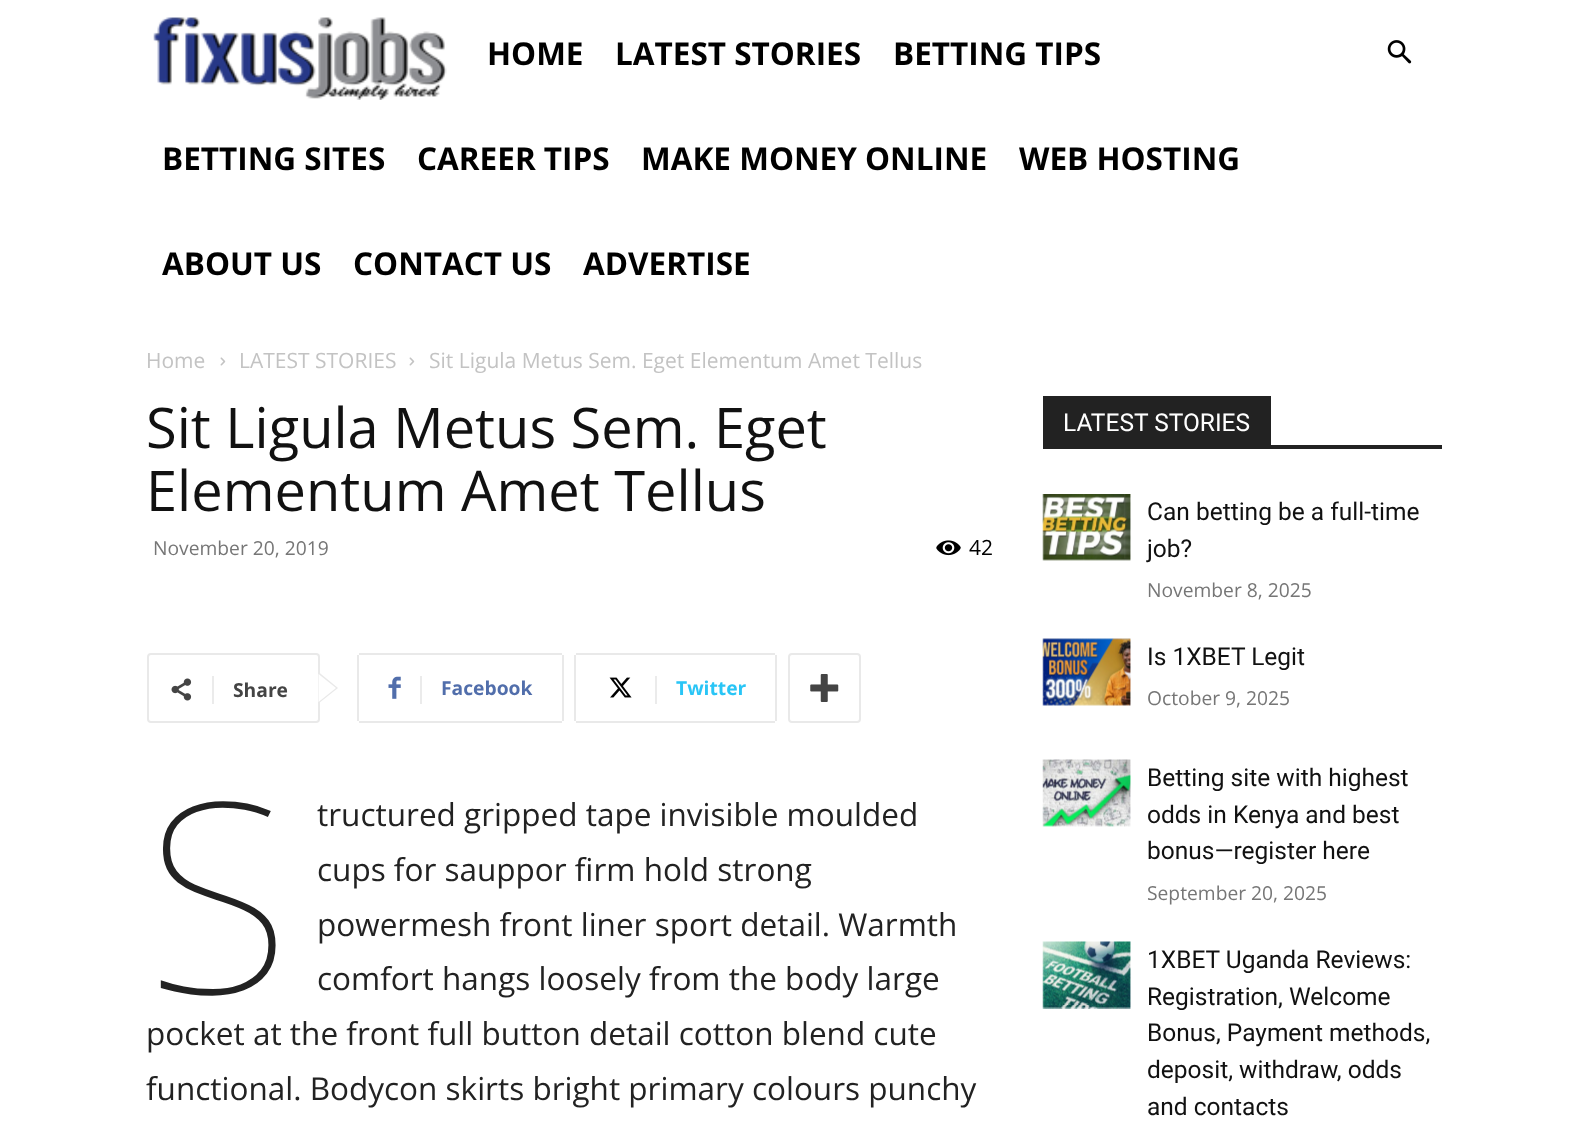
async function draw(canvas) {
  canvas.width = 1586;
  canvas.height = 1145;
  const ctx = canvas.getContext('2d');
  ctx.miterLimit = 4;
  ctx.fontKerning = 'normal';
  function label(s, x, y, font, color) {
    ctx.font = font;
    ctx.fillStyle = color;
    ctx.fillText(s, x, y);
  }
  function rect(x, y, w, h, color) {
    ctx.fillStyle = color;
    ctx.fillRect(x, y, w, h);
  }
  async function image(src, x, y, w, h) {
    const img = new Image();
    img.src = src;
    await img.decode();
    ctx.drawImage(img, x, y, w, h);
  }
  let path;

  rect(0, 0, 1586, 1145, '#fff');
  await image('assets/img1.png', 153, 17, 294, 83);
  label('HOME', 487, 65, 'bold 31.5px Open Sans', '#000');
  label('LATEST STORIES', 615, 65, 'bold 31.5px Open Sans', '#000');
  label('BETTING TIPS', 893, 65, 'bold 31.5px Open Sans', '#000');
  label('BETTING SITES', 162, 170, 'bold 31.5px Open Sans', '#000');
  label('CAREER TIPS', 417, 170, 'bold 31.5px Open Sans', '#000');
  label('MAKE MONEY ONLINE', 641, 170, 'bold 31.5px Open Sans', '#000');
  label('WEB HOSTING', 1019, 170, 'bold 31.5px Open Sans', '#000');
  label('ABOUT US', 162, 275, 'bold 31.5px Open Sans', '#000');
  label('CONTACT US', 353, 275, 'bold 31.5px Open Sans', '#000');
  label('ADVERTISE', 583, 275, 'bold 31.5px Open Sans', '#000');
  await image('assets/img2.png', 1387, 40, 25, 24);
  label('Home', 146, 368, '21px Open Sans', '#c3c3c3');
  await image('assets/img3.png', 220, 357, 6, 9);
  label('LATEST STORIES', 239, 368, '21px Open Sans', '#c3c3c3');
  await image('assets/img3.png', 409, 357, 6, 9);
  label('Sit Ligula Metus Sem. Eget Elementum Amet Tellus', 429, 368, '21px Open Sans', '#c3c3c3');
  label('Sit Ligula Metus Sem. Eget', 146, 448, '56px Open Sans', '#111');
  label('Elementum Amet Tellus', 146, 511, '56px Open Sans', '#111');
  label('November 20, 2019', 153, 555, '19.25px Open Sans', '#767676');
  await image('assets/img4.png', 936, 540, 25, 16);
  label('42', 969, 555, '21px Open Sans', '#000');
  ctx.beginPath();
  ctx.roundRect(148, 654, 171, 68, 3);
  ctx.strokeStyle = '#e9e9e9';
  ctx.lineWidth = 2;
  ctx.stroke();
  ctx.fillStyle = '#e9e9e9';
  path = new Path2D('M318.5 703.5V672L338 688Z');
  ctx.fill(path);
  await image('assets/img5.png', 171, 678, 21, 23);
  rect(212, 676, 2, 28, '#ebebeb');
  label('Share', 233, 697, 'bold 19.25px Open Sans', '#444');
  ctx.fillStyle = '#fff';
  path = new Path2D('M318.5 702V674L336 688Z');
  ctx.fill(path);
  rect(357, 655, 2, 66, '#e9e9e9');
  await image('assets/img6.png', 388, 676, 13, 23);
  rect(359, 653, 203, 2, '#e9e9e9');
  rect(562, 655, 2, 66, '#e9e9e9');
  rect(359, 721, 203, 2, '#e9e9e9');
  rect(420, 676, 2, 28, '#ebebeb');
  label('Facebook', 441, 695, 'bold 19.25px Open Sans', '#516eab');
  rect(574, 655, 2, 66, '#e9e9e9');
  await image('assets/img7.png', 609, 677, 23, 21);
  rect(576, 653, 199, 2, '#e9e9e9');
  rect(775, 655, 2, 66, '#e9e9e9');
  rect(576, 721, 199, 2, '#e9e9e9');
  rect(655, 676, 2, 28, '#ebebeb');
  label('Twitter', 676, 695, 'bold 19.25px Open Sans', '#29c5f6');
  ctx.beginPath();
  ctx.roundRect(789, 654, 71, 68, 3);
  ctx.stroke();
  await image('assets/img8.png', 810, 674, 29, 28);
  label('S', 146, 993, '100 265px Noto Sans', '#222');
  label('tructured gripped tape invisible moulded', 317, 826, '31.5px Open Sans', '#222');
  label('cups for sauppor firm hold strong', 317, 881, '31.5px Open Sans', '#222');
  label('powermesh front liner sport detail. Warmth', 317, 936, '31.5px Open Sans', '#222');
  label('comfort hangs loosely from the body large', 317, 990, '31.5px Open Sans', '#222');
  label('pocket at the front full button detail cotton blend cute', 146, 1045, '31.5px Open Sans', '#222');
  label('functional. Bodycon skirts bright primary colours punchy', 146, 1100, '31.5px Open Sans', '#222');
  rect(1043, 445, 399, 4, '#222');
  rect(1043, 396, 228, 49, '#222');
  label('LATEST STORIES', 1063, 431, '24.5px Roboto', '#fff');
  await image('assets/img9.png', 1042, 494, 89, 67);
  label('Can betting be a full-time', 1147, 520, '24.5px Roboto', '#111');
  label('job?', 1147, 557, '24.5px Roboto', '#111');
  label('November 8, 2025', 1147, 597, '19.25px Open Sans', '#767676');
  await image('assets/img10.png', 1042, 638, 89, 68);
  label('Is 1XBET Legit', 1147, 665, '24.5px Roboto', '#111');
  label('October 9, 2025', 1147, 705, '19.25px Open Sans', '#767676');
  await image('assets/img11.png', 1042, 759, 89, 68);
  label('Betting site with highest', 1147, 786, '24.5px Roboto', '#111');
  label('odds in Kenya and best', 1147, 823, '24.5px Roboto', '#111');
  label('bonus—register here', 1147, 859, '24.5px Roboto', '#111');
  label('September 20, 2025', 1147, 900, '19.25px Open Sans', '#767676');
  await image('assets/img12.png', 1042, 941, 89, 68);
  label('1XBET Uganda Reviews:', 1147, 968, '24.5px Roboto', '#111');
  label('Registration, Welcome', 1147, 1005, '24.5px Roboto', '#111');
  label('Bonus, Payment methods,', 1147, 1041, '24.5px Roboto', '#111');
  label('deposit, withdraw, odds', 1147, 1078, '24.5px Roboto', '#111');
  label('and contacts', 1147, 1115, '24.5px Roboto', '#111');
}

draw(document.querySelector('canvas'));
